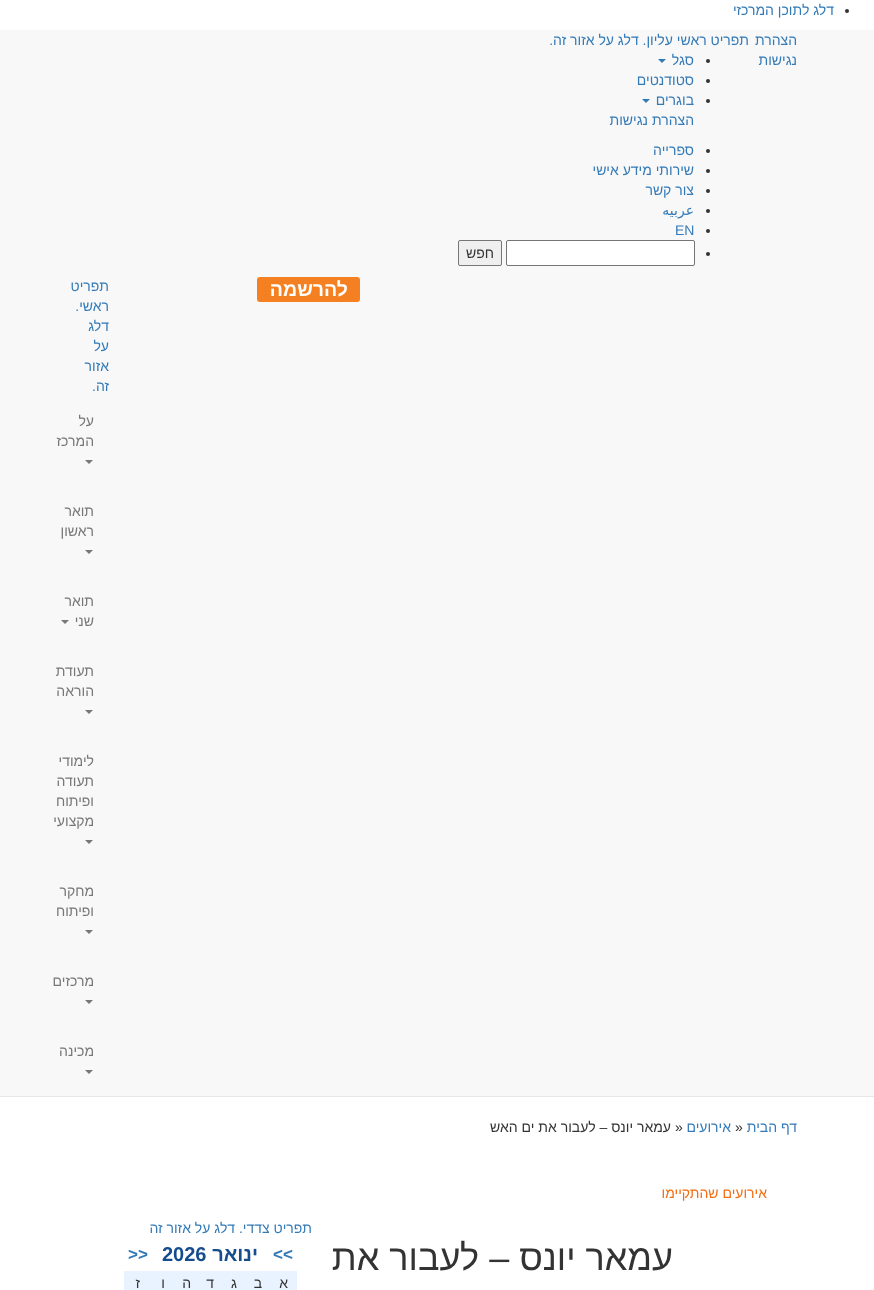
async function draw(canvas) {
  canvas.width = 874;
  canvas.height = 1290;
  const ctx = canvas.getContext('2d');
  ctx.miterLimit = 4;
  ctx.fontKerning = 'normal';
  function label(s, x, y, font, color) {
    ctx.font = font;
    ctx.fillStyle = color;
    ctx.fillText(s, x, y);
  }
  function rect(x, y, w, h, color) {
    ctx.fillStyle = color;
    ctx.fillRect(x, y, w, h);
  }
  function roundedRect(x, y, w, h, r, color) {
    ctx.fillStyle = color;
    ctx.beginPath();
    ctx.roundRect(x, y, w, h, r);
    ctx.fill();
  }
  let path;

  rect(0, 0, 874, 1290, '#fff');
  ctx.fillStyle = '#333';
  ctx.beginPath();
  ctx.arc(847, 11, 2, 0, 2 * Math.PI);
  ctx.fill();
  ctx.direction = 'rtl';
  label('דלג לתוכן המרכזי', 834, 15, '14px Liberation Sans', '#337ab7');
  rect(0, 30, 874, 1066, '#f8f8f8');
  rect(0, 1096, 874, 1, '#e7e7e7');
  label('הצהרת', 797, 45, '14px Liberation Sans', '#337ab7');
  label('נגישות', 797, 65, '14px Liberation Sans', '#337ab7');
  label('תפריט ראשי עליון. דלג על אזור זה.', 749, 45, '14px Liberation Sans', '#337ab7');
  ctx.fillStyle = '#333';
  ctx.beginPath();
  ctx.arc(708, 61, 2, 0, 2 * Math.PI);
  ctx.fill();
  label('סגל', 694, 65, '14px Liberation Sans', '#337ab7');
  path = new Path2D('M658 59H666L662 63Z');
  ctx.fill(path);
  ctx.fillStyle = '#333';
  ctx.beginPath();
  ctx.arc(708, 81, 2, 0, 2 * Math.PI);
  ctx.fill();
  label('סטודנטים', 694, 85, '14px Liberation Sans', '#337ab7');
  ctx.fillStyle = '#333';
  ctx.beginPath();
  ctx.arc(708, 101, 2, 0, 2 * Math.PI);
  ctx.fill();
  label('בוגרים', 694, 105, '14px Liberation Sans', '#337ab7');
  path = new Path2D('M642 99H650L646 103Z');
  ctx.fill(path);
  label('הצהרת נגישות', 694, 125, '14px Liberation Sans', '#337ab7');
  ctx.fillStyle = '#333';
  ctx.beginPath();
  ctx.arc(708, 151, 2, 0, 2 * Math.PI);
  ctx.fill();
  label('ספרייה', 694, 155, '14px Liberation Sans', '#337ab7');
  ctx.fillStyle = '#333';
  ctx.beginPath();
  ctx.arc(708, 171, 2, 0, 2 * Math.PI);
  ctx.fill();
  label('שירותי מידע אישי', 694, 175, '14px Liberation Sans', '#337ab7');
  ctx.fillStyle = '#333';
  ctx.beginPath();
  ctx.arc(708, 191, 2, 0, 2 * Math.PI);
  ctx.fill();
  label('צור קשר', 694, 195, '14px Liberation Sans', '#337ab7');
  ctx.fillStyle = '#333';
  ctx.beginPath();
  ctx.arc(708, 211, 2, 0, 2 * Math.PI);
  ctx.fill();
  label('عربيه', 694, 215, '14px DejaVu Sans', '#337ab7');
  ctx.fillStyle = '#333';
  ctx.beginPath();
  ctx.arc(708, 231, 2, 0, 2 * Math.PI);
  ctx.fill();
  ctx.direction = 'ltr';
  label('EN', 675, 235, '14px Liberation Sans', '#337ab7');
  ctx.fillStyle = '#333';
  ctx.beginPath();
  ctx.arc(708, 254, 2, 0, 2 * Math.PI);
  ctx.fill();
  ctx.fillStyle = '#fff';
  ctx.beginPath();
  ctx.roundRect(506.5, 240.5, 188, 25, 1.5);
  ctx.fill();
  ctx.strokeStyle = '#767676';
  ctx.stroke();
  ctx.fillStyle = '#efefef';
  ctx.beginPath();
  ctx.roundRect(458.5, 240.5, 43, 25, 1.5);
  ctx.fill();
  ctx.stroke();
  ctx.direction = 'rtl';
  label('חפש', 494, 258, '14px Liberation Sans', '#333');
  roundedRect(257, 277, 103, 25, 3, '#f58021');
  label('להרשמה', 348, 296, 'bold 19.5px Liberation Sans', '#fff');
  label('תפריט', 109, 291, '14px Liberation Sans', '#337ab7');
  label('ראשי.', 109, 311, '14px Liberation Sans', '#337ab7');
  label('דלג', 109, 331, '14px Liberation Sans', '#337ab7');
  label('על', 109, 351, '14px Liberation Sans', '#337ab7');
  label('אזור', 109, 371, '14px Liberation Sans', '#337ab7');
  label('זה.', 109, 391, '14px Liberation Sans', '#337ab7');
  label('על', 94, 426, '14px Liberation Sans', '#777');
  label('המרכז', 94, 446, '14px Liberation Sans', '#777');
  path = new Path2D('M85 460H93L89 464Z');
  ctx.fill(path);
  label('תואר', 94, 516, '14px Liberation Sans', '#777');
  label('ראשון', 94, 536, '14px Liberation Sans', '#777');
  path = new Path2D('M85 550H93L89 554Z');
  ctx.fill(path);
  label('תואר', 94, 606, '14px Liberation Sans', '#777');
  label('שני', 94, 626, '14px Liberation Sans', '#777');
  path = new Path2D('M61 620H69L65 624Z');
  ctx.fill(path);
  label('תעודת', 94, 676, '14px Liberation Sans', '#777');
  label('הוראה', 94, 696, '14px Liberation Sans', '#777');
  path = new Path2D('M85 710H93L89 714Z');
  ctx.fill(path);
  label('לימודי', 94, 766, '14px Liberation Sans', '#777');
  label('תעודה', 94, 786, '14px Liberation Sans', '#777');
  label('ופיתוח', 94, 806, '14px Liberation Sans', '#777');
  label('מקצועי', 94, 826, '14px Liberation Sans', '#777');
  path = new Path2D('M85 840H93L89 844Z');
  ctx.fill(path);
  label('מחקר', 94, 896, '14px Liberation Sans', '#777');
  label('ופיתוח', 94, 916, '14px Liberation Sans', '#777');
  path = new Path2D('M85 930H93L89 934Z');
  ctx.fill(path);
  label('מרכזים', 94, 986, '14px Liberation Sans', '#777');
  path = new Path2D('M85 1000H93L89 1004Z');
  ctx.fill(path);
  label('מכינה', 94, 1056, '14px Liberation Sans', '#777');
  path = new Path2D('M85 1070H93L89 1074Z');
  ctx.fill(path);
  label('דף הבית', 797, 1132, '14px Liberation Sans', '#337ab7');
  ctx.direction = 'ltr';
  label('»', 735, 1132, '14px Liberation Sans', '#333');
  ctx.direction = 'rtl';
  label('אירועים', 731, 1132, '14px Liberation Sans', '#337ab7');
  ctx.direction = 'ltr';
  label('»', 675, 1132, '14px Liberation Sans', '#333');
  ctx.direction = 'rtl';
  label('עמאר יונס – לעבור את ים האש', 671, 1132, '14px Liberation Sans', '#333');
  label('אירועים שהתקיימו', 767, 1198, '14px Liberation Sans', '#f36c12');
  label('תפריט צדדי. דלג על אזור זה', 312, 1233, '14px Liberation Sans', '#337ab7');
  label('עמאר יונס – לעבור את', 673, 1270, '36px Liberation Sans', '#333');
  ctx.direction = 'ltr';
  label('<<', 273, 1260, 'bold 17px Liberation Sans', '#337ab7');
  ctx.direction = 'rtl';
  label('ינואר', 258, 1261, 'bold 20px Liberation Sans', '#144c8d');
  ctx.direction = 'ltr';
  label('2026', 162, 1261, 'bold 20px Liberation Sans', '#144c8d');
  label('>>', 128, 1260, 'bold 17px Liberation Sans', '#337ab7');
  rect(124, 1271, 173, 19, '#e9f3ff');
  ctx.direction = 'rtl';
  label('א', 288, 1288, '14px Liberation Sans', '#333');
  label('ב', 262, 1288, '14px Liberation Sans', '#333');
  label('ג', 237, 1288, '14px Liberation Sans', '#333');
  label('ד', 214, 1288, '14px Liberation Sans', '#333');
  label('ה', 191, 1288, '14px Liberation Sans', '#333');
  label('ו', 165, 1288, '14px Liberation Sans', '#333');
  label('ז', 140, 1288, '14px Liberation Sans', '#333');
}

draw(document.querySelector('canvas'));
